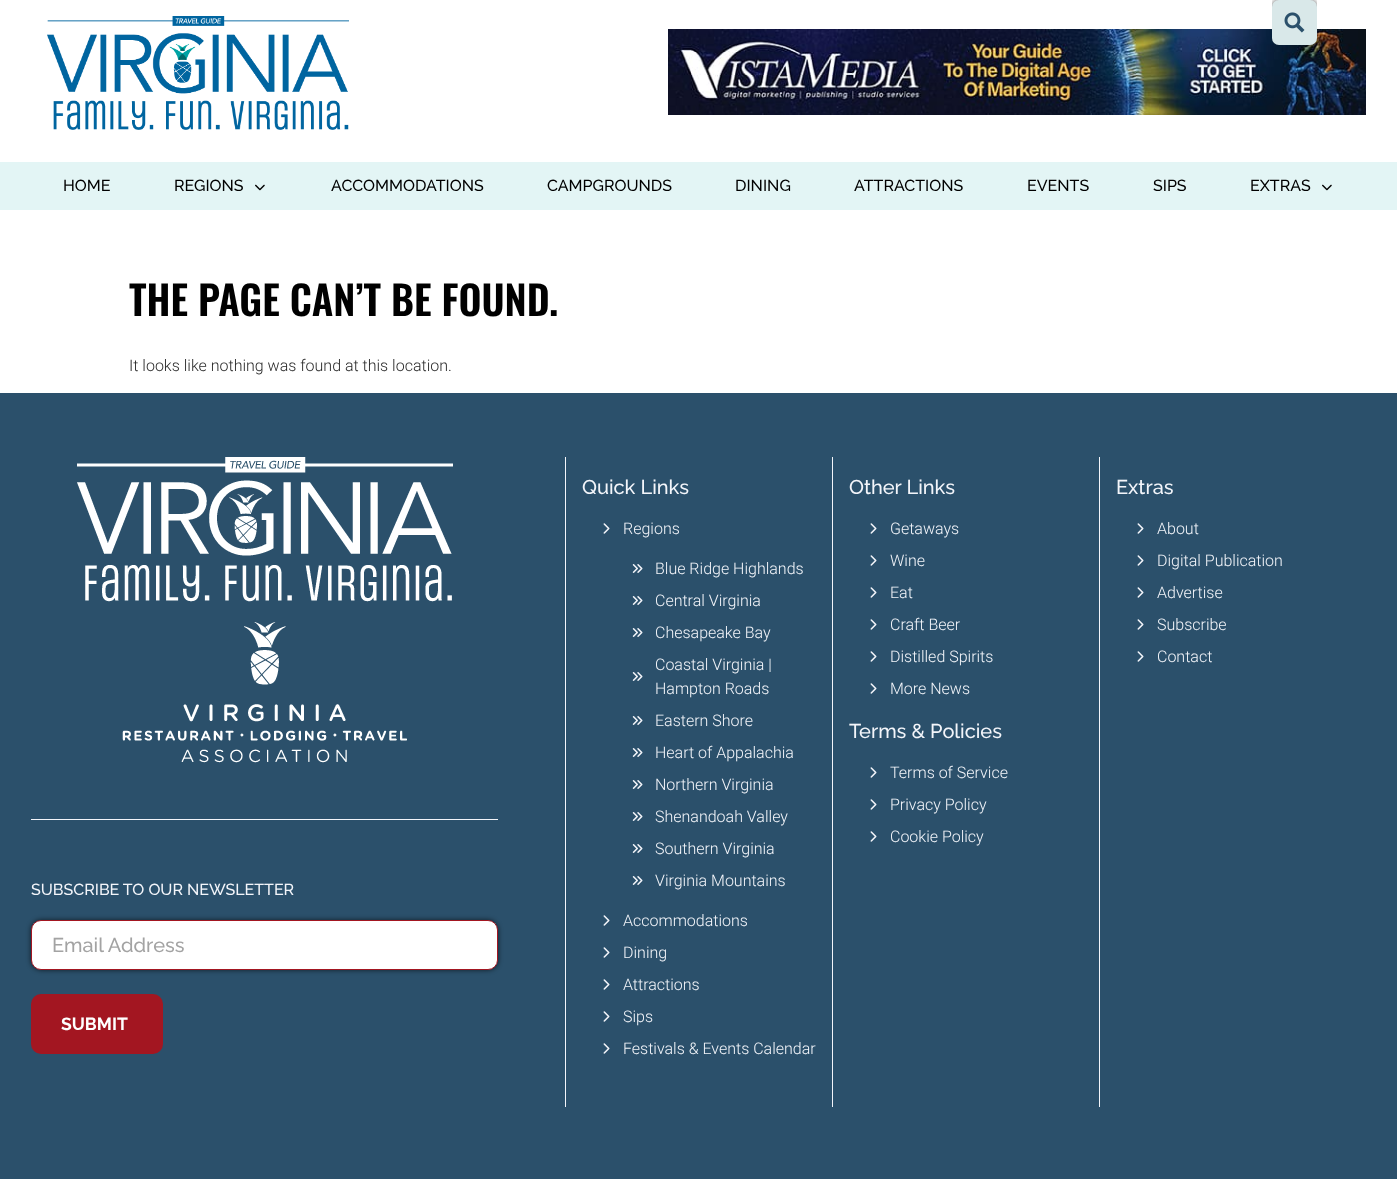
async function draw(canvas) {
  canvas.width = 1397;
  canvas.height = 1179;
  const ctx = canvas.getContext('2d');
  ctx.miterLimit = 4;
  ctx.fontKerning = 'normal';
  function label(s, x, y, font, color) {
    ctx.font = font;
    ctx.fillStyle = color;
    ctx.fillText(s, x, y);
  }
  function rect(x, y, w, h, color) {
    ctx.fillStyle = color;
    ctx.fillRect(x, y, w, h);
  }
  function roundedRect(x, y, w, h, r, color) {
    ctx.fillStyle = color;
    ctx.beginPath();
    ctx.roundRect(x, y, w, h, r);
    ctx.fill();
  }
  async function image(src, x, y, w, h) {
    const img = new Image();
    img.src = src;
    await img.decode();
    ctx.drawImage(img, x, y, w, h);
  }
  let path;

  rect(0, 0, 1397, 1179, '#fff');
  await image('assets/img3.png', 668, 29, 698, 86);
  ctx.save();
  path = new Path2D('M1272 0H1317V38C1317 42 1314 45 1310 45H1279C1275 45 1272 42 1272 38Z');
  ctx.clip(path);
  ctx.fillStyle = '#000000a6';
  ctx.filter = 'blur(2.5px)';
  ctx.beginPath();
  ctx.roundRect(1272, 0, 45, 45, 7);
  ctx.fill();
  ctx.filter = 'none';
  ctx.restore();
  roundedRect(1272, 0, 45, 45, 7, '#fff');
  roundedRect(1272, 0, 45, 45, 7, '#00686926');
  await image('assets/img1.png', 1284, 12, 21, 21);
  await image('assets/img2.png', 47, 16, 302, 114);
  rect(0, 162, 1397, 48, '#e3f5f5');
  label('HOME', 63, 191, '500 16px Raleway', '#000');
  label('REGIONS', 174, 191, '500 16px Raleway', '#000');
  await image('assets/img4.png', 255, 184, 10, 7);
  label('ACCOMMODATIONS', 331, 191, '500 16px Raleway', '#000');
  label('CAMPGROUNDS', 547, 191, '500 16px Raleway', '#000');
  label('DINING', 735, 191, '500 16px Raleway', '#000');
  label('ATTRACTIONS', 854, 191, '500 16px Raleway', '#000');
  label('EVENTS', 1027, 191, '500 16px Raleway', '#000');
  label('SIPS', 1153, 191, '500 16px Raleway', '#000');
  label('EXTRAS', 1250, 191, '500 16px Raleway', '#000');
  await image('assets/img4.png', 1322, 184, 10, 7);
  label('THE PAGE CAN’T BE FOUND.', 129, 316, '600 40px Oswald', '#000');
  label('It looks like nothing was found at this location.', 129, 371, '300 16px Roboto', '#2a2a2a');
  rect(0, 393, 1397, 786, '#2b506b');
  await image('assets/img5.png', 77, 457, 376, 306);
  rect(31, 819, 467, 1, '#f3f5fa');
  label('SUBSCRIBE TO OUR NEWSLETTER', 31, 895, '500 16px Raleway', '#f3f5fa');
  ctx.fillStyle = '#000000a6';
  ctx.filter = 'blur(2.5px)';
  ctx.beginPath();
  ctx.roundRect(31, 920, 467, 50, 10);
  ctx.fill();
  ctx.filter = 'none';
  ctx.fillStyle = '#fff';
  ctx.beginPath();
  ctx.roundRect(31.5, 920.5, 466, 49, 9.5);
  ctx.fill();
  ctx.strokeStyle = '#a31621';
  ctx.stroke();
  label('Email Address', 52, 952, '500 20px Raleway', '#a3a3a3');
  roundedRect(31, 994, 132, 60, 10, '#a31621');
  label('SUBMIT', 61, 1030, '100 17.5px Raleway', '#fff');
  rect(565, 457, 1, 650, '#f3f5fa');
  label('Quick Links', 582, 494, '500 20px Raleway', '#f3f5fa');
  await image('assets/img6.png', 603, 523, 7, 11);
  label('Regions', 623, 534, '300 16px Roboto', '#f3f5fa');
  await image('assets/img7.png', 632, 564, 11, 9);
  label('Blue Ridge Highlands', 655, 574, '300 16px Roboto', '#f3f5fa');
  await image('assets/img7.png', 632, 596, 11, 9);
  label('Central Virginia', 655, 606, '300 16px Roboto', '#f3f5fa');
  await image('assets/img7.png', 632, 628, 11, 9);
  label('Chesapeake Bay', 655, 638, '300 16px Roboto', '#f3f5fa');
  await image('assets/img7.png', 632, 672, 11, 9);
  label('Coastal Virginia |', 655, 670, '300 16px Roboto', '#f3f5fa');
  label('Hampton Roads', 655, 694, '300 16px Roboto', '#f3f5fa');
  await image('assets/img7.png', 632, 716, 11, 9);
  label('Eastern Shore', 655, 726, '300 16px Roboto', '#f3f5fa');
  await image('assets/img7.png', 632, 748, 11, 9);
  label('Heart of Appalachia', 655, 758, '300 16px Roboto', '#f3f5fa');
  await image('assets/img7.png', 632, 780, 11, 9);
  label('Northern Virginia', 655, 790, '300 16px Roboto', '#f3f5fa');
  await image('assets/img7.png', 632, 812, 11, 9);
  label('Shenandoah Valley', 655, 822, '300 16px Roboto', '#f3f5fa');
  await image('assets/img7.png', 632, 844, 11, 9);
  label('Southern Virginia', 655, 854, '300 16px Roboto', '#f3f5fa');
  await image('assets/img7.png', 632, 876, 11, 9);
  label('Virginia Mountains', 655, 886, '300 16px Roboto', '#f3f5fa');
  await image('assets/img6.png', 603, 915, 7, 11);
  label('Accommodations', 623, 926, '300 16px Roboto', '#f3f5fa');
  await image('assets/img6.png', 603, 947, 7, 11);
  label('Dining', 623, 958, '300 16px Roboto', '#f3f5fa');
  await image('assets/img6.png', 603, 979, 7, 11);
  label('Attractions', 623, 990, '300 16px Roboto', '#f3f5fa');
  await image('assets/img6.png', 603, 1011, 7, 11);
  label('Sips', 623, 1022, '300 16px Roboto', '#f3f5fa');
  await image('assets/img6.png', 603, 1043, 7, 11);
  label('Festivals & Events Calendar', 623, 1054, '300 16px Roboto', '#f3f5fa');
  rect(832, 457, 1, 650, '#f3f5fa');
  label('Other Links', 849, 494, '500 20px Raleway', '#f3f5fa');
  await image('assets/img6.png', 870, 523, 7, 11);
  label('Getaways', 890, 534, '300 16px Roboto', '#f3f5fa');
  await image('assets/img6.png', 870, 555, 7, 11);
  label('Wine', 890, 566, '300 16px Roboto', '#f3f5fa');
  await image('assets/img6.png', 870, 587, 7, 11);
  label('Eat', 890, 598, '300 16px Roboto', '#f3f5fa');
  await image('assets/img6.png', 870, 619, 7, 11);
  label('Craft Beer', 890, 630, '300 16px Roboto', '#f3f5fa');
  await image('assets/img6.png', 870, 651, 7, 11);
  label('Distilled Spirits', 890, 662, '300 16px Roboto', '#f3f5fa');
  await image('assets/img6.png', 870, 683, 7, 11);
  label('More News', 890, 694, '300 16px Roboto', '#f3f5fa');
  label('Terms & Policies', 849, 738, '500 20px Raleway', '#f3f5fa');
  await image('assets/img6.png', 870, 767, 7, 11);
  label('Terms of Service', 890, 778, '300 16px Roboto', '#f3f5fa');
  await image('assets/img6.png', 870, 799, 7, 11);
  label('Privacy Policy', 890, 810, '300 16px Roboto', '#f3f5fa');
  await image('assets/img6.png', 870, 831, 7, 11);
  label('Cookie Policy', 890, 842, '300 16px Roboto', '#f3f5fa');
  rect(1099, 457, 1, 650, '#f3f5fa');
  label('Extras', 1116, 494, '500 20px Raleway', '#f3f5fa');
  await image('assets/img6.png', 1137, 523, 7, 11);
  label('About', 1157, 534, '300 16px Roboto', '#f3f5fa');
  await image('assets/img6.png', 1137, 555, 7, 11);
  label('Digital Publication', 1157, 566, '300 16px Roboto', '#f3f5fa');
  await image('assets/img6.png', 1137, 587, 7, 11);
  label('Advertise', 1157, 598, '300 16px Roboto', '#f3f5fa');
  await image('assets/img6.png', 1137, 619, 7, 11);
  label('Subscribe', 1157, 630, '300 16px Roboto', '#f3f5fa');
  await image('assets/img6.png', 1137, 651, 7, 11);
  label('Contact', 1157, 662, '300 16px Roboto', '#f3f5fa');
}

draw(document.querySelector('canvas'));
